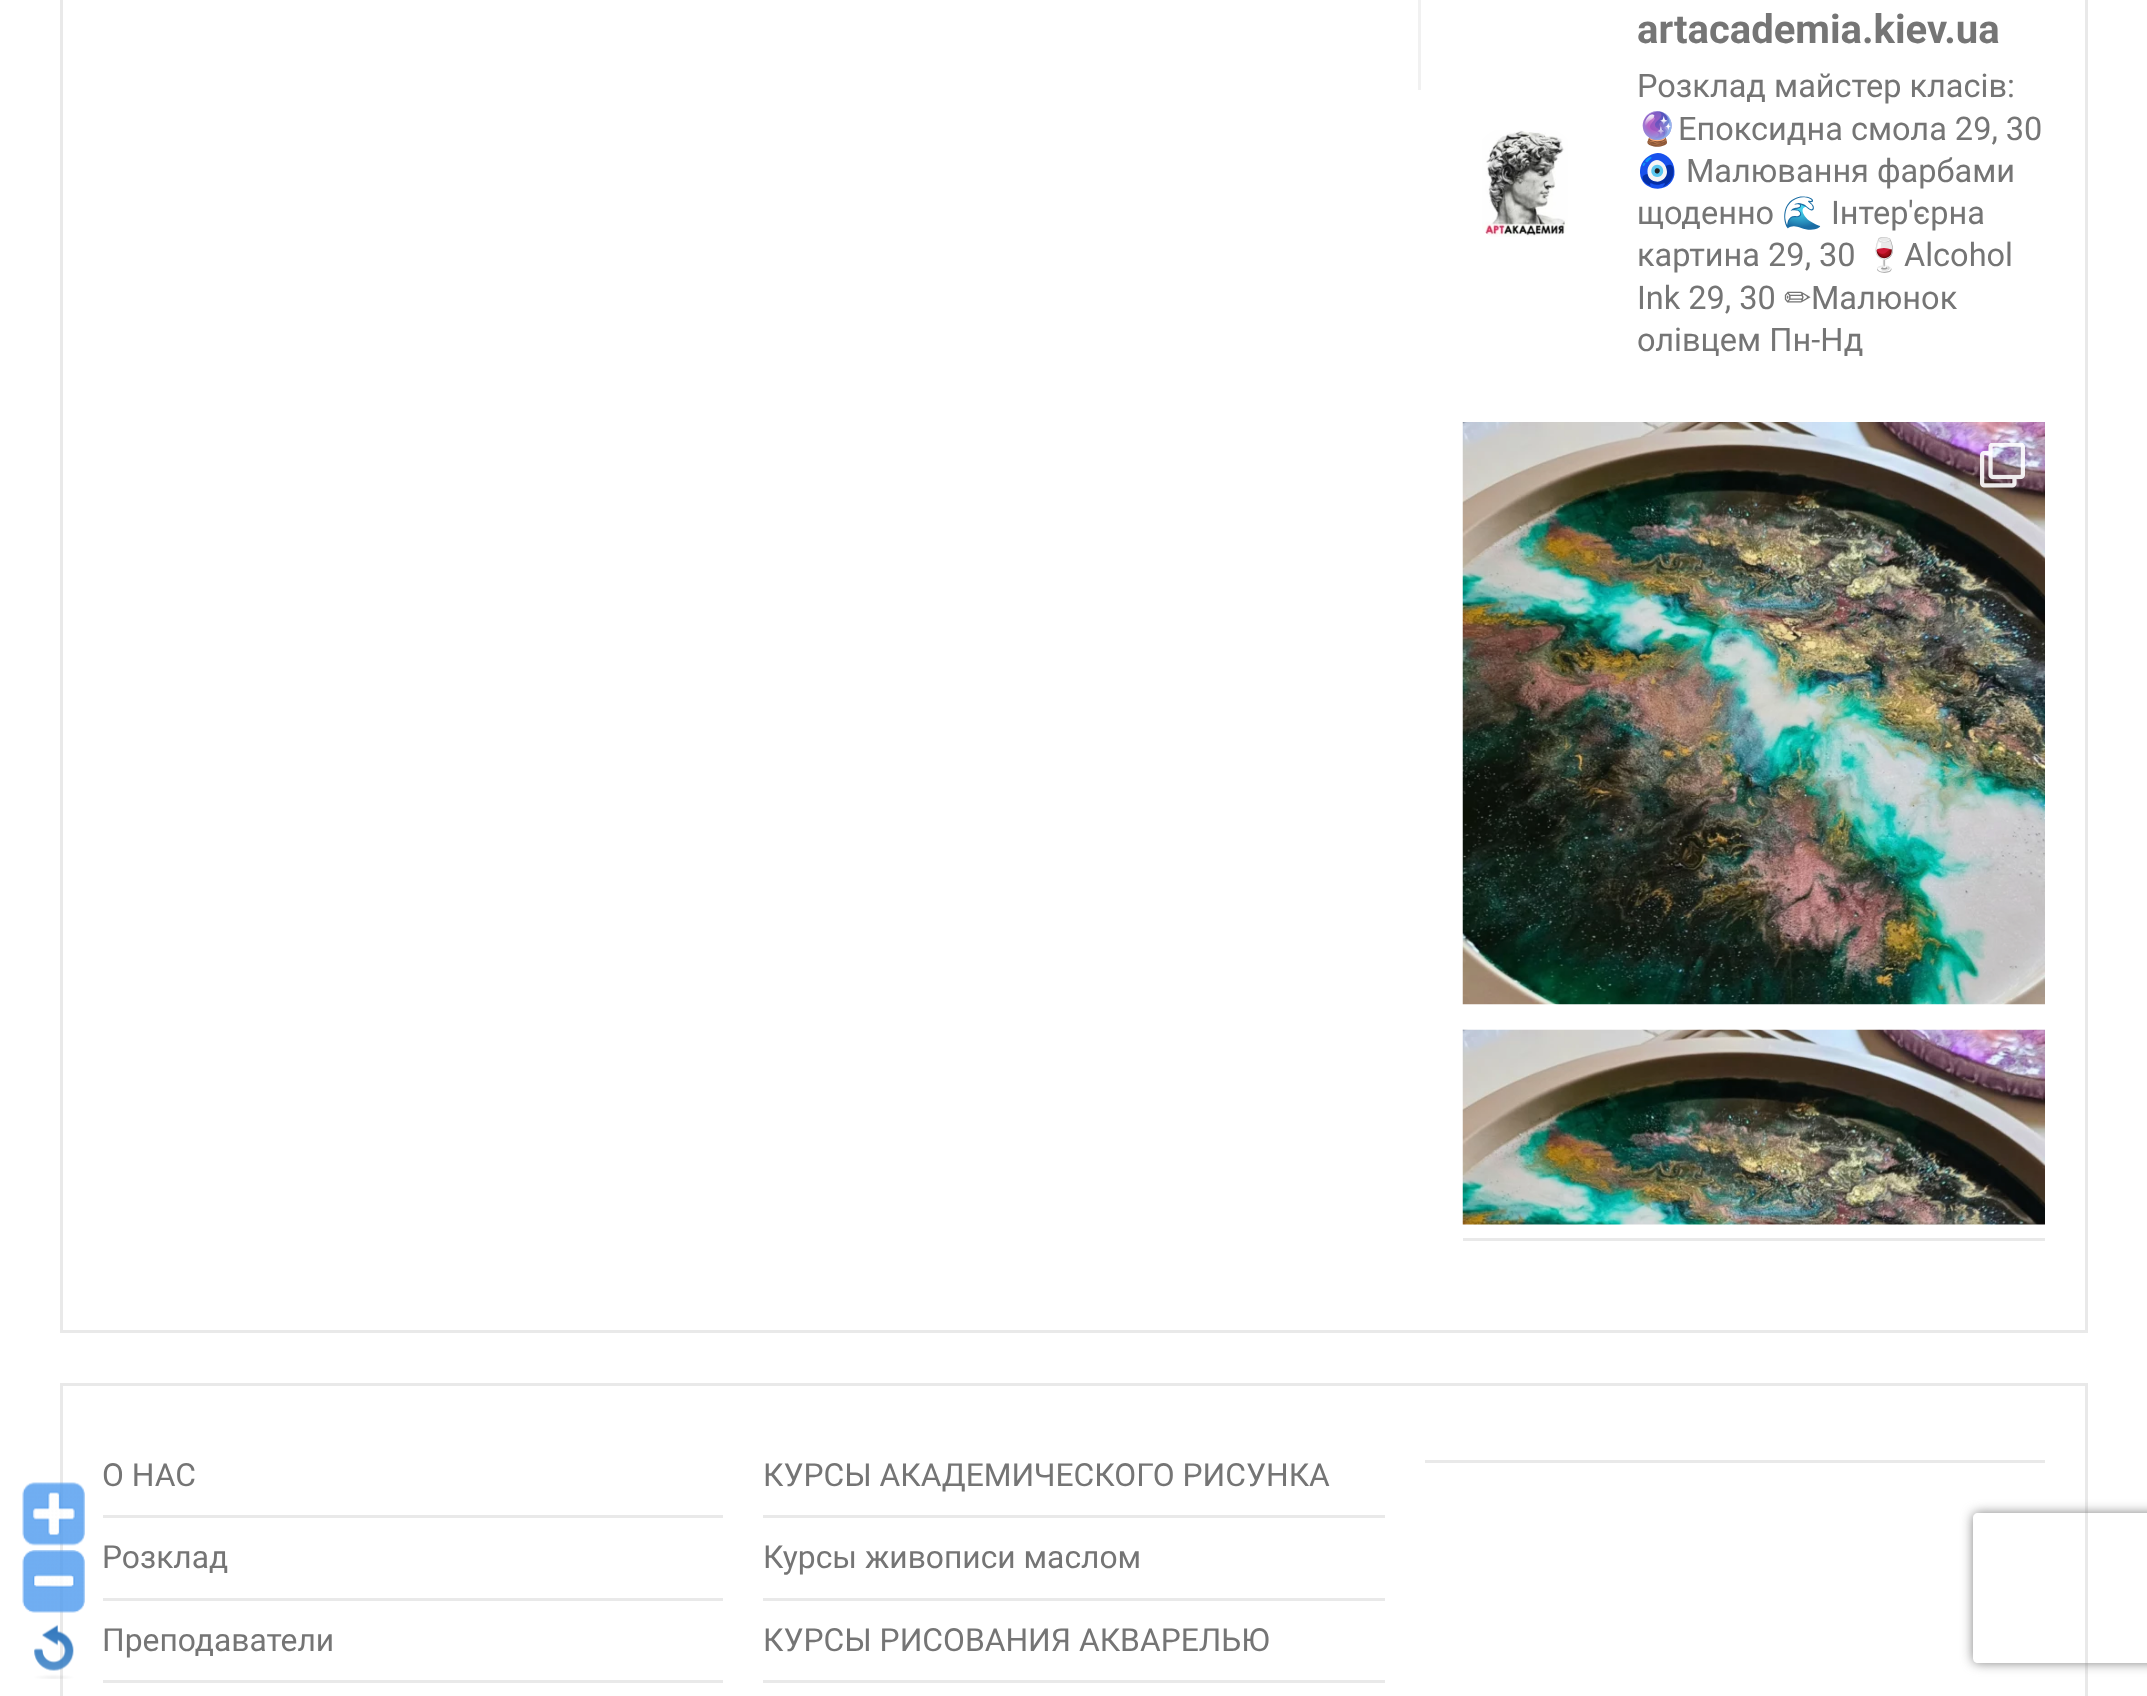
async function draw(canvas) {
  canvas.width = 2147;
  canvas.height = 1696;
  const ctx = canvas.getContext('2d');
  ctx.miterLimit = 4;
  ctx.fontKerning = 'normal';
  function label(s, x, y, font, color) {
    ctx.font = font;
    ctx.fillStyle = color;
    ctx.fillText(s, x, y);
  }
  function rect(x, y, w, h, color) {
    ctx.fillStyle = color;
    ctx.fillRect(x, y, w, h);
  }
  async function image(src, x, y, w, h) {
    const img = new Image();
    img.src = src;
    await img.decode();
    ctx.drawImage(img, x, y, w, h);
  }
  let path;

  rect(0, 0, 2147, 1696, '#fff');
  ctx.strokeStyle = '#e9e9e9';
  ctx.lineWidth = 3;
  ctx.strokeRect(61.5, 1384.5, 2025, 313);
  await image('assets/img1.png', 22, 1482, 63, 64);
  await image('assets/img2.png', 22, 1550, 63, 63);
  await image('assets/img3.png', 34, 1624, 40, 55);
  ctx.strokeRect(61.5, -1.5, 2025, 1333);
  rect(1418, 0, 3, 90, '#f1f1f1');
  rect(1463, 1238, 582, 3, '#e9e9e9');
  await image('assets/img4.png', 1482, 130, 86, 107);
  label('artacademia.kiev.ua', 1637, 43, 'bold 40px Roboto', '#757575');
  label('Розклад майстер класів:', 1637, 97, '32.5px Roboto', '#757575');
  label('🔮', 1637, 140, '32.5px Noto Color Emoji', '#757575');
  label('Епоксидна смола 29, 30', 1678, 140, '32.5px Roboto', '#757575');
  label('🧿', 1637, 182, '32.5px Noto Color Emoji', '#757575');
  label('Малювання фарбами', 1686, 182, '32.5px Roboto', '#757575');
  label('щоденно', 1637, 224, '32.5px Roboto', '#757575');
  label('🌊', 1782, 224, '32.5px Noto Color Emoji', '#757575');
  label('Інтер\'єрна', 1831, 224, '32.5px Roboto', '#757575');
  label('картина 29, 30', 1637, 266, '32.5px Roboto', '#757575');
  label('🍷', 1864, 266, '32.5px Noto Color Emoji', '#757575');
  label('Alcohol', 1904, 266, '32.5px Roboto', '#757575');
  label('Ink 29, 30', 1637, 309, '32.5px Roboto', '#757575');
  label('✏', 1784, 309, '32.5px DejaVu Sans', '#757575');
  label('Малюнок', 1811, 309, '32.5px Roboto', '#757575');
  label('олівцем Пн-Нд', 1637, 351, '32.5px Roboto', '#757575');
  await image('assets/img5.png', 1462, 422, 583, 583);
  await image('assets/img6.png', 1980, 443, 45, 45);
  await image('assets/img7.png', 1462, 1029, 583, 196);
  rect(1425, 1460, 620, 3, '#e9e9e9');
  rect(103, 1515, 620, 3, '#e9e9e9');
  label('О НАС', 102, 1486, '31.8px Roboto', '#757575');
  rect(103, 1598, 620, 3, '#e9e9e9');
  label('Розклад', 102, 1568, '31.8px Roboto', '#757575');
  rect(103, 1680, 620, 3, '#e9e9e9');
  label('Преподаватели', 102, 1651, '31.8px Roboto', '#757575');
  rect(763, 1515, 622, 3, '#e9e9e9');
  label('КУРСЫ АКАДЕМИЧЕСКОГО РИСУНКА', 763, 1486, '31.8px Roboto', '#757575');
  rect(763, 1598, 622, 3, '#e9e9e9');
  label('Курсы живописи маслом', 763, 1568, '31.8px Roboto', '#757575');
  rect(763, 1680, 622, 3, '#e9e9e9');
  label('КУРСЫ РИСОВАНИЯ АКВАРЕЛЬЮ', 763, 1651, '31.8px Roboto', '#757575');
  ctx.save();
  path = new Path2D('M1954 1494H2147V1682H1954ZM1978 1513H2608C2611 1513 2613 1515 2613 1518V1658C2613 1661 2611 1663 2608 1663H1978C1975 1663 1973 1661 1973 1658V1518C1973 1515 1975 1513 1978 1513Z');
  ctx.clip(path, 'evenodd');
  ctx.fillStyle = '#808080';
  ctx.filter = 'blur(6px)';
  ctx.beginPath();
  ctx.roundRect(1973, 1513, 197, 150, 5);
  ctx.fill();
  ctx.filter = 'none';
  ctx.restore();
}

draw(document.querySelector('canvas'));
